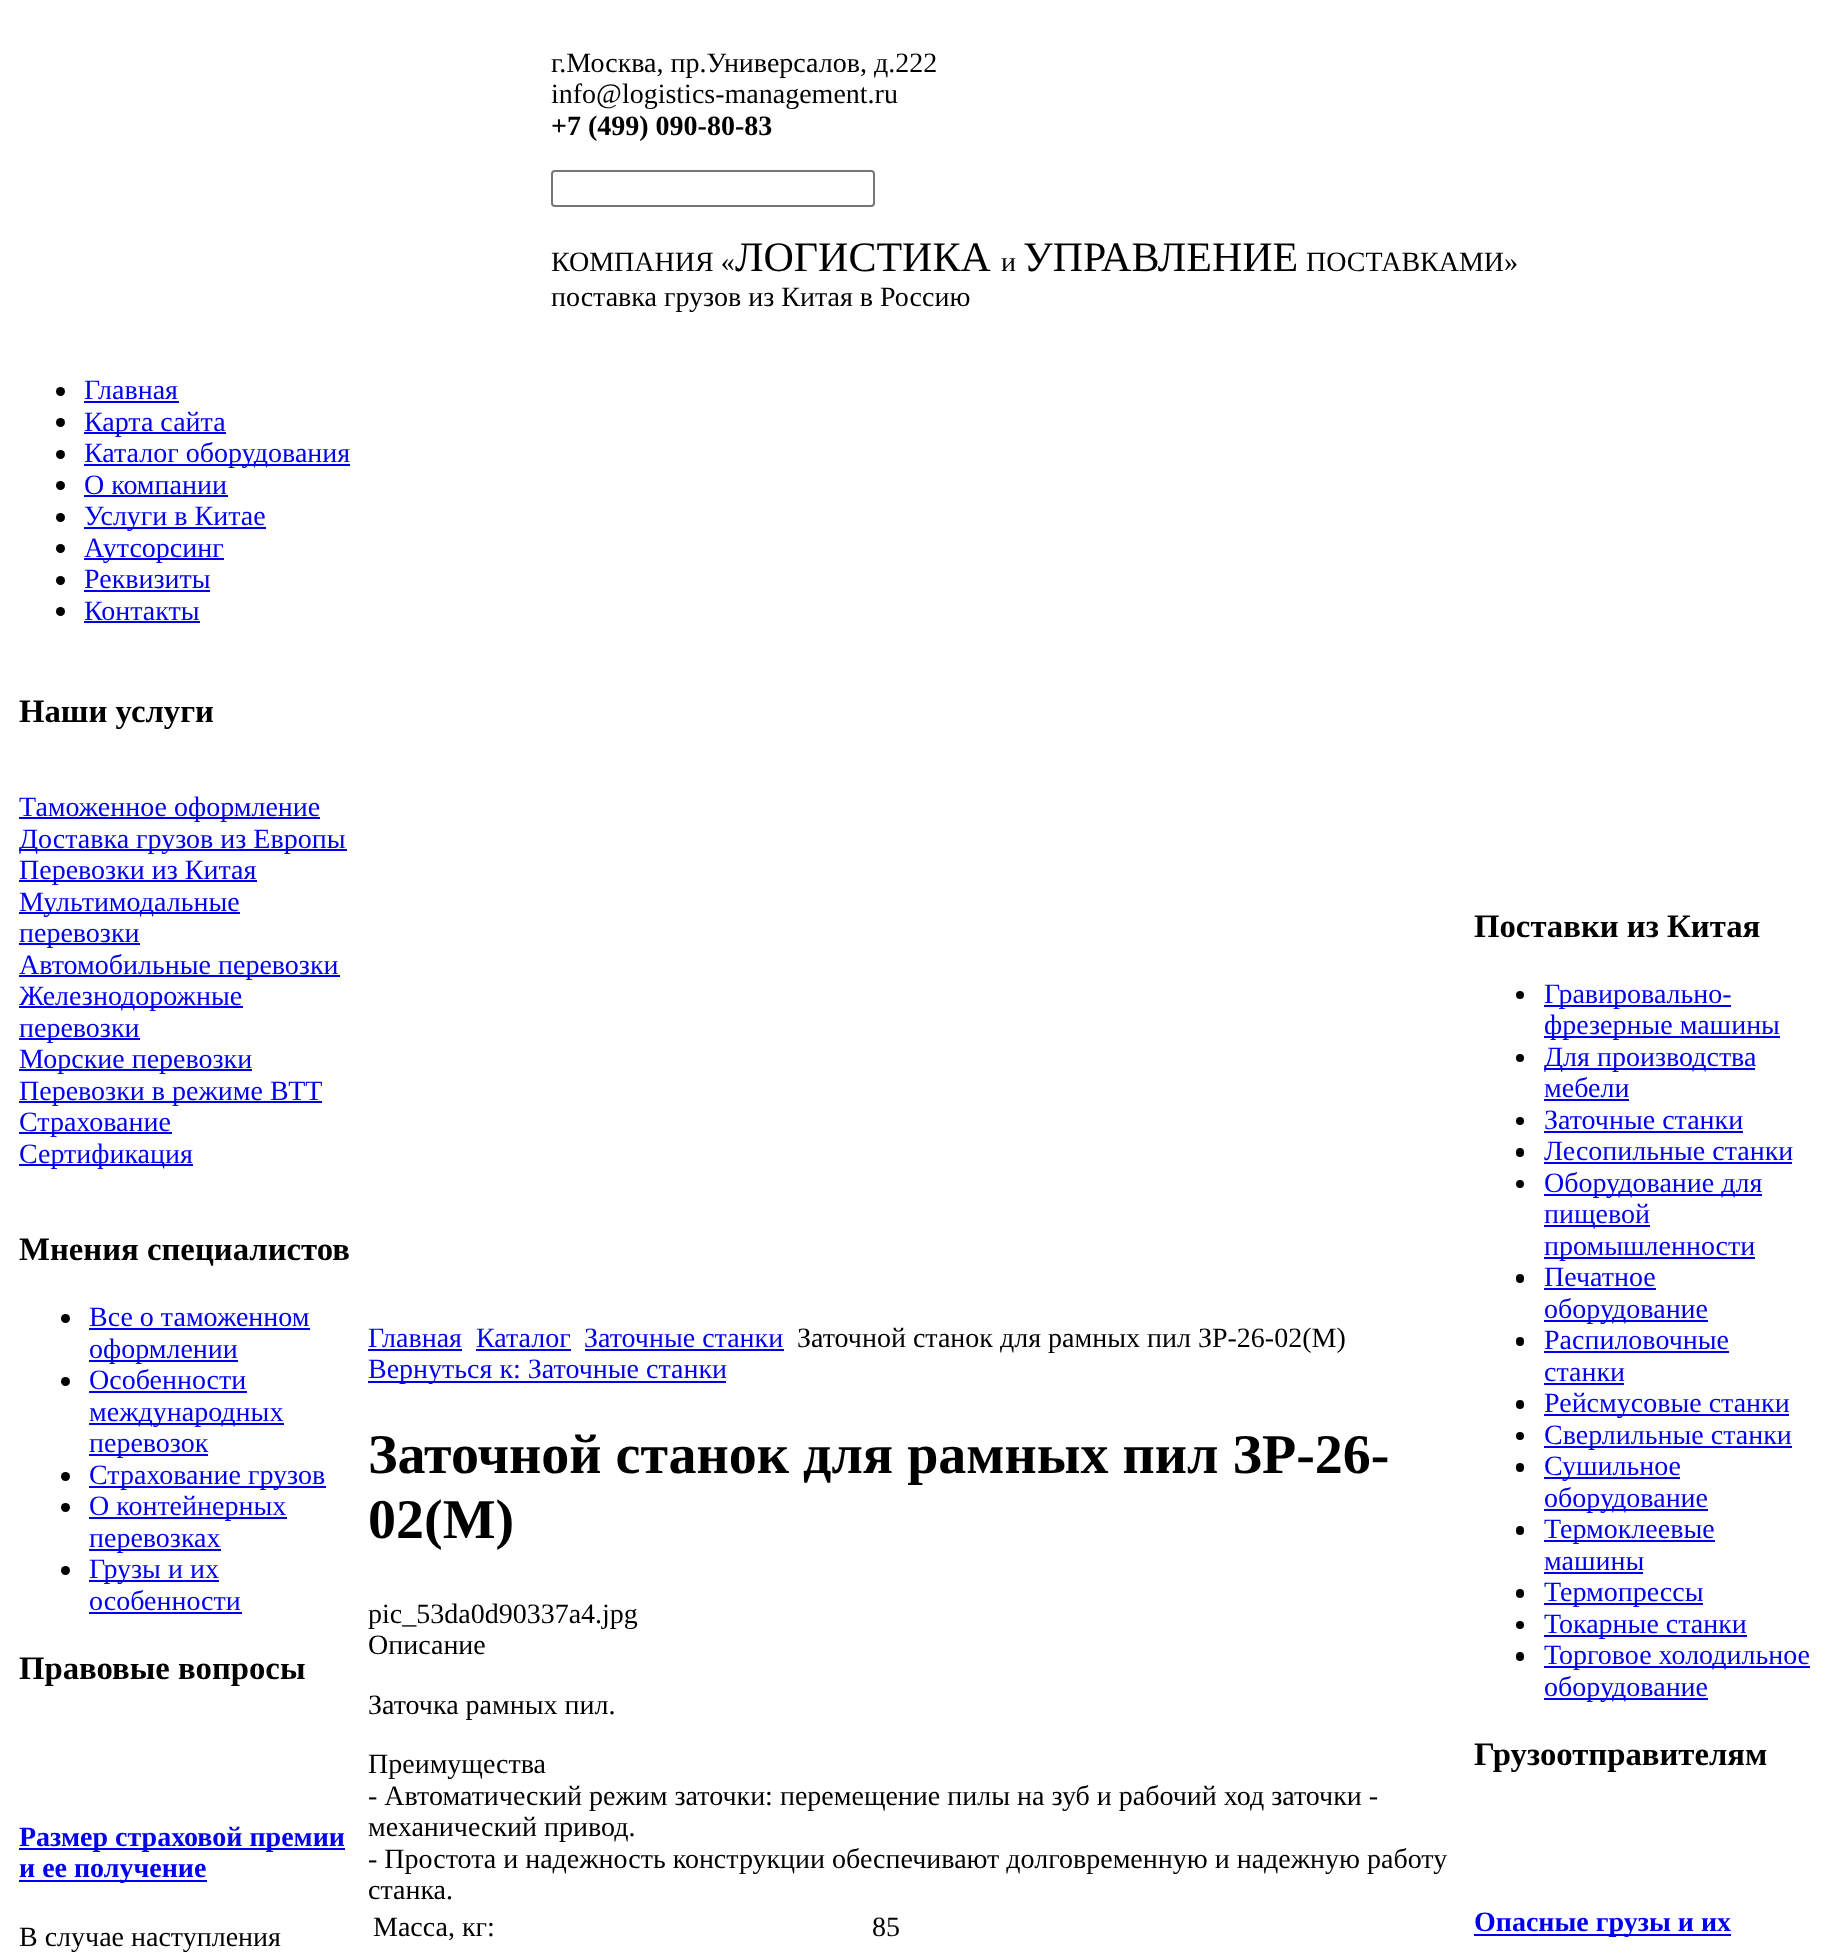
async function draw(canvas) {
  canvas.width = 1833;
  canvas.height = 1953;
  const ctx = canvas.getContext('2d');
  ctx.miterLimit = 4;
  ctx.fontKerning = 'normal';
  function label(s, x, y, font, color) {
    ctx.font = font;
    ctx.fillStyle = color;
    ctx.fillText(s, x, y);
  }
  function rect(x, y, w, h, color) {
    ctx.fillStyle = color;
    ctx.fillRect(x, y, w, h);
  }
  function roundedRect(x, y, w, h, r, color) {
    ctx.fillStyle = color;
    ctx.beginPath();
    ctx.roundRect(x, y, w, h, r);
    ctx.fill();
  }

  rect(0, 0, 1833, 1953, '#fff');
  label('г.Москва, пр.Универсалов, д.222', 551, 72, '28px Liberation Serif', '#000');
  label('info@logistics-management.ru', 551, 103, '28px Liberation Serif', '#000');
  label('+7 (499) 090-80-83', 551, 135, 'bold 28px Liberation Serif', '#000');
  ctx.beginPath();
  ctx.roundRect(552, 171, 322, 35, 3);
  ctx.strokeStyle = '#767676';
  ctx.lineWidth = 2;
  ctx.stroke();
  label('КОМПАНИЯ «', 551, 271, '28px Liberation Serif', '#000');
  label('ЛОГИСТИКА', 735, 271, '42px Liberation Serif', '#000');
  label('и', 1001, 271, '28px Liberation Serif', '#000');
  label('УПРАВЛЕНИЕ', 1023, 271, '42px Liberation Serif', '#000');
  label('ПОСТАВКАМИ»', 1306, 271, '28px Liberation Serif', '#000');
  label('поставка грузов из Китая в Россию', 551, 306, '28px Liberation Serif', '#000');
  ctx.beginPath();
  ctx.arc(60.5, 391.5, 4.5, 0, 2 * Math.PI);
  ctx.fill();
  label('Главная', 84, 399, '28px Liberation Serif', '#00e');
  rect(84, 401, 95, 2, '#00e');
  ctx.fillStyle = '#000';
  ctx.beginPath();
  ctx.arc(60.5, 422.5, 4.5, 0, 2 * Math.PI);
  ctx.fill();
  rect(84, 432, 142, 2, '#00e');
  label('Карта сайта', 84, 431, '28px Liberation Serif', '#00e');
  ctx.fillStyle = '#000';
  ctx.beginPath();
  ctx.arc(60.5, 454.5, 4.5, 0, 2 * Math.PI);
  ctx.fill();
  rect(84, 464, 266, 2, '#00e');
  label('Каталог оборудования', 84, 462, '28px Liberation Serif', '#00e');
  ctx.fillStyle = '#000';
  ctx.beginPath();
  ctx.arc(60.5, 485.5, 4.5, 0, 2 * Math.PI);
  ctx.fill();
  label('О компании', 84, 494, '28px Liberation Serif', '#00e');
  rect(84, 495, 144, 2, '#00e');
  ctx.fillStyle = '#000';
  ctx.beginPath();
  ctx.arc(60.5, 517.5, 4.5, 0, 2 * Math.PI);
  ctx.fill();
  rect(84, 527, 182, 2, '#00e');
  label('Услуги в Китае', 84, 525, '28px Liberation Serif', '#00e');
  ctx.fillStyle = '#000';
  ctx.beginPath();
  ctx.arc(60.5, 548.5, 4.5, 0, 2 * Math.PI);
  ctx.fill();
  rect(84, 558, 140, 2, '#00e');
  label('Аутсорсинг', 84, 557, '28px Liberation Serif', '#00e');
  ctx.fillStyle = '#000';
  ctx.beginPath();
  ctx.arc(60.5, 580.5, 4.5, 0, 2 * Math.PI);
  ctx.fill();
  label('Реквизиты', 84, 588, '28px Liberation Serif', '#00e');
  rect(84, 590, 126, 2, '#00e');
  ctx.fillStyle = '#000';
  ctx.beginPath();
  ctx.arc(60.5, 611.5, 4.5, 0, 2 * Math.PI);
  ctx.fill();
  label('Контакты', 84, 620, '28px Liberation Serif', '#00e');
  rect(84, 621, 116, 2, '#00e');
  label('Наши услуги', 19, 722, 'bold 32.75px Liberation Serif', '#000');
  rect(19, 817, 301, 2, '#00e');
  label('Таможенное оформление', 19, 816, '28px Liberation Serif', '#00e');
  rect(19, 849, 328, 2, '#00e');
  label('Доставка грузов из Европы', 19, 848, '28px Liberation Serif', '#00e');
  rect(19, 880, 238, 2, '#00e');
  label('Перевозки из Китая', 19, 879, '28px Liberation Serif', '#00e');
  rect(19, 912, 221, 2, '#00e');
  label('Мультимодальные', 19, 911, '28px Liberation Serif', '#00e');
  rect(19, 943, 121, 2, '#00e');
  label('перевозки', 19, 942, '28px Liberation Serif', '#00e');
  rect(19, 975, 321, 2, '#00e');
  label('Автомобильные перевозки', 19, 974, '28px Liberation Serif', '#00e');
  rect(19, 1006, 224, 2, '#00e');
  label('Железнодорожные', 19, 1005, '28px Liberation Serif', '#00e');
  rect(19, 1038, 121, 2, '#00e');
  label('перевозки', 19, 1037, '28px Liberation Serif', '#00e');
  rect(19, 1069, 233, 2, '#00e');
  label('Морские перевозки', 19, 1068, '28px Liberation Serif', '#00e');
  rect(19, 1101, 303, 2, '#00e');
  label('Перевозки в режиме ВТТ', 19, 1100, '28px Liberation Serif', '#00e');
  rect(19, 1132, 153, 2, '#00e');
  label('Страхование', 19, 1131, '28px Liberation Serif', '#00e');
  rect(19, 1164, 174, 2, '#00e');
  label('Сертификация', 19, 1163, '28px Liberation Serif', '#00e');
  label('Мнения специалистов', 19, 1260, 'bold 32.75px Liberation Serif', '#000');
  ctx.beginPath();
  ctx.arc(65.5, 1318.5, 4.5, 0, 2 * Math.PI);
  ctx.fill();
  label('Все о таможенном', 89, 1326, '28px Liberation Serif', '#00e');
  rect(89, 1328, 221, 2, '#00e');
  rect(89, 1360, 149, 2, '#00e');
  label('оформлении', 89, 1358, '28px Liberation Serif', '#00e');
  ctx.fillStyle = '#000';
  ctx.beginPath();
  ctx.arc(65.5, 1381.5, 4.5, 0, 2 * Math.PI);
  ctx.fill();
  label('Особенности', 89, 1389, '28px Liberation Serif', '#00e');
  rect(89, 1391, 158, 2, '#00e');
  rect(89, 1423, 195, 2, '#00e');
  label('международных', 89, 1421, '28px Liberation Serif', '#00e');
  rect(89, 1454, 119, 2, '#00e');
  label('перевозок', 89, 1452, '28px Liberation Serif', '#00e');
  ctx.fillStyle = '#000';
  ctx.beginPath();
  ctx.arc(65.5, 1476.5, 4.5, 0, 2 * Math.PI);
  ctx.fill();
  rect(89, 1486, 237, 2, '#00e');
  label('Страхование грузов', 89, 1484, '28px Liberation Serif', '#00e');
  ctx.fillStyle = '#000';
  ctx.beginPath();
  ctx.arc(65.5, 1507.5, 4.5, 0, 2 * Math.PI);
  ctx.fill();
  rect(89, 1517, 198, 2, '#00e');
  label('О контейнерных', 89, 1515, '28px Liberation Serif', '#00e');
  rect(89, 1549, 132, 2, '#00e');
  label('перевозках', 89, 1547, '28px Liberation Serif', '#00e');
  ctx.fillStyle = '#000';
  ctx.beginPath();
  ctx.arc(65.5, 1570.5, 4.5, 0, 2 * Math.PI);
  ctx.fill();
  rect(89, 1580, 130, 2, '#00e');
  label('Грузы и их', 89, 1578, '28px Liberation Serif', '#00e');
  label('особенности', 89, 1610, '28px Liberation Serif', '#00e');
  rect(89, 1612, 153, 2, '#00e');
  label('Правовые вопросы', 19, 1679, 'bold 32.75px Liberation Serif', '#000');
  rect(19, 1848, 326, 2, '#00e');
  label('Размер страховой премии', 19, 1846, 'bold 28px Liberation Serif', '#00e');
  rect(19, 1880, 188, 2, '#00e');
  label('и ее получение', 19, 1877, 'bold 28px Liberation Serif', '#00e');
  label('В случае наступления', 19, 1946, '28px Liberation Serif', '#000');
  label('Главная', 368, 1347, '28px Liberation Serif', '#00e');
  rect(368, 1349, 94, 2, '#00e');
  label('Каталог', 476, 1347, '28px Liberation Serif', '#00e');
  rect(476, 1349, 95, 2, '#00e');
  label('Заточные станки', 584, 1347, '28px Liberation Serif', '#00e');
  rect(585, 1349, 199, 2, '#00e');
  label('Заточной станок для рамных пил ЗР-26-02(М)', 797, 1347, '28px Liberation Serif', '#000');
  rect(368, 1381, 358, 2, '#00e');
  label('Вернуться к: Заточные станки', 368, 1378, '28px Liberation Serif', '#00e');
  label('Заточной станок для рамных пил ЗР-26-', 368, 1473, 'bold 56px Liberation Serif', '#000');
  label('02(М)', 368, 1538, 'bold 56px Liberation Serif', '#000');
  label('pic_53da0d90337a4.jpg', 368, 1623, '28px Liberation Serif', '#000');
  label('Описание', 368, 1654, '28px Liberation Serif', '#000');
  label('Заточка рамных пил.', 368, 1714, '28px Liberation Serif', '#000');
  label('Преимущества', 368, 1773, '28px Liberation Serif', '#000');
  label('- Автоматический режим заточки: перемещение пилы на зуб и рабочий ход заточки -', 368, 1805, '28px Liberation Serif', '#000');
  label('механический привод.', 368, 1836, '28px Liberation Serif', '#000');
  label('- Простота и надежность конструкции обеспечивают долговременную и надежную работу', 368, 1868, '28px Liberation Serif', '#000');
  label('станка.', 368, 1899, '28px Liberation Serif', '#000');
  label('Масса, кг:', 373, 1936, '28px Liberation Serif', '#000');
  label('85', 872, 1936, '28px Liberation Serif', '#000');
  label('Поставки из Китая', 1474, 937, 'bold 32.75px Liberation Serif', '#000');
  ctx.beginPath();
  ctx.arc(1520, 995, 4, 0, 2 * Math.PI);
  ctx.fill();
  rect(1544, 1005, 187, 2, '#00e');
  label('Гравировально-', 1544, 1003, '28px Liberation Serif', '#00e');
  rect(1544, 1036, 236, 2, '#00e');
  label('фрезерные машины', 1544, 1034, '28px Liberation Serif', '#00e');
  ctx.fillStyle = '#000';
  ctx.beginPath();
  ctx.arc(1520, 1058, 4, 0, 2 * Math.PI);
  ctx.fill();
  rect(1544, 1068, 211, 2, '#00e');
  label('Для производства', 1544, 1066, '28px Liberation Serif', '#00e');
  label('мебели', 1544, 1097, '28px Liberation Serif', '#00e');
  rect(1544, 1099, 85, 2, '#00e');
  ctx.fillStyle = '#000';
  ctx.beginPath();
  ctx.arc(1520, 1121, 4, 0, 2 * Math.PI);
  ctx.fill();
  label('Заточные станки', 1544, 1129, '28px Liberation Serif', '#00e');
  rect(1544, 1131, 199, 2, '#00e');
  roundedRect(1516, 1148, 8, 9, 4, '#000');
  label('Лесопильные станки', 1544, 1160, '28px Liberation Serif', '#00e');
  rect(1544, 1162, 248, 2, '#00e');
  ctx.fillStyle = '#000';
  ctx.beginPath();
  ctx.arc(1520, 1184, 4, 0, 2 * Math.PI);
  ctx.fill();
  rect(1544, 1194, 218, 2, '#00e');
  label('Оборудование для', 1544, 1192, '28px Liberation Serif', '#00e');
  rect(1544, 1225, 106, 2, '#00e');
  label('пищевой', 1544, 1223, '28px Liberation Serif', '#00e');
  rect(1544, 1257, 211, 2, '#00e');
  label('промышленности', 1544, 1255, '28px Liberation Serif', '#00e');
  roundedRect(1516, 1274, 8, 9, 4, '#000');
  label('Печатное', 1544, 1286, '28px Liberation Serif', '#00e');
  rect(1544, 1288, 112, 2, '#00e');
  rect(1544, 1320, 164, 2, '#00e');
  label('оборудование', 1544, 1318, '28px Liberation Serif', '#00e');
  roundedRect(1516, 1337, 8, 9, 4, '#000');
  label('Распиловочные', 1544, 1349, '28px Liberation Serif', '#00e');
  rect(1544, 1351, 185, 2, '#00e');
  label('станки', 1544, 1381, '28px Liberation Serif', '#00e');
  rect(1544, 1383, 80, 2, '#00e');
  roundedRect(1516, 1400, 8, 9, 4, '#000');
  rect(1544, 1414, 245, 2, '#00e');
  label('Рейсмусовые станки', 1544, 1412, '28px Liberation Serif', '#00e');
  ctx.fillStyle = '#000';
  ctx.beginPath();
  ctx.arc(1520, 1436, 4, 0, 2 * Math.PI);
  ctx.fill();
  rect(1544, 1446, 248, 2, '#00e');
  label('Сверлильные станки', 1544, 1444, '28px Liberation Serif', '#00e');
  roundedRect(1516, 1463, 8, 9, 4, '#000');
  rect(1544, 1477, 136, 2, '#00e');
  label('Сушильное', 1544, 1475, '28px Liberation Serif', '#00e');
  rect(1544, 1509, 164, 2, '#00e');
  label('оборудование', 1544, 1507, '28px Liberation Serif', '#00e');
  roundedRect(1516, 1526, 8, 9, 4, '#000');
  rect(1544, 1540, 171, 2, '#00e');
  label('Термоклеевые', 1544, 1538, '28px Liberation Serif', '#00e');
  label('машины', 1544, 1570, '28px Liberation Serif', '#00e');
  rect(1544, 1572, 99, 2, '#00e');
  roundedRect(1516, 1589, 8, 9, 4, '#000');
  rect(1544, 1603, 159, 2, '#00e');
  label('Термопрессы', 1544, 1601, '28px Liberation Serif', '#00e');
  ctx.fillStyle = '#000';
  ctx.beginPath();
  ctx.arc(1520, 1625, 4, 0, 2 * Math.PI);
  ctx.fill();
  rect(1544, 1635, 203, 2, '#00e');
  label('Токарные станки', 1544, 1633, '28px Liberation Serif', '#00e');
  roundedRect(1516, 1652, 8, 9, 4, '#000');
  rect(1544, 1666, 266, 2, '#00e');
  label('Торговое холодильное', 1544, 1664, '28px Liberation Serif', '#00e');
  rect(1544, 1698, 164, 2, '#00e');
  label('оборудование', 1544, 1696, '28px Liberation Serif', '#00e');
  label('Грузоотправителям', 1474, 1765, 'bold 32.75px Liberation Serif', '#000');
  rect(1474, 1934, 257, 2, '#00e');
  label('Опасные грузы и их', 1474, 1931, 'bold 28px Liberation Serif', '#00e');
}

draw(document.querySelector('canvas'));
